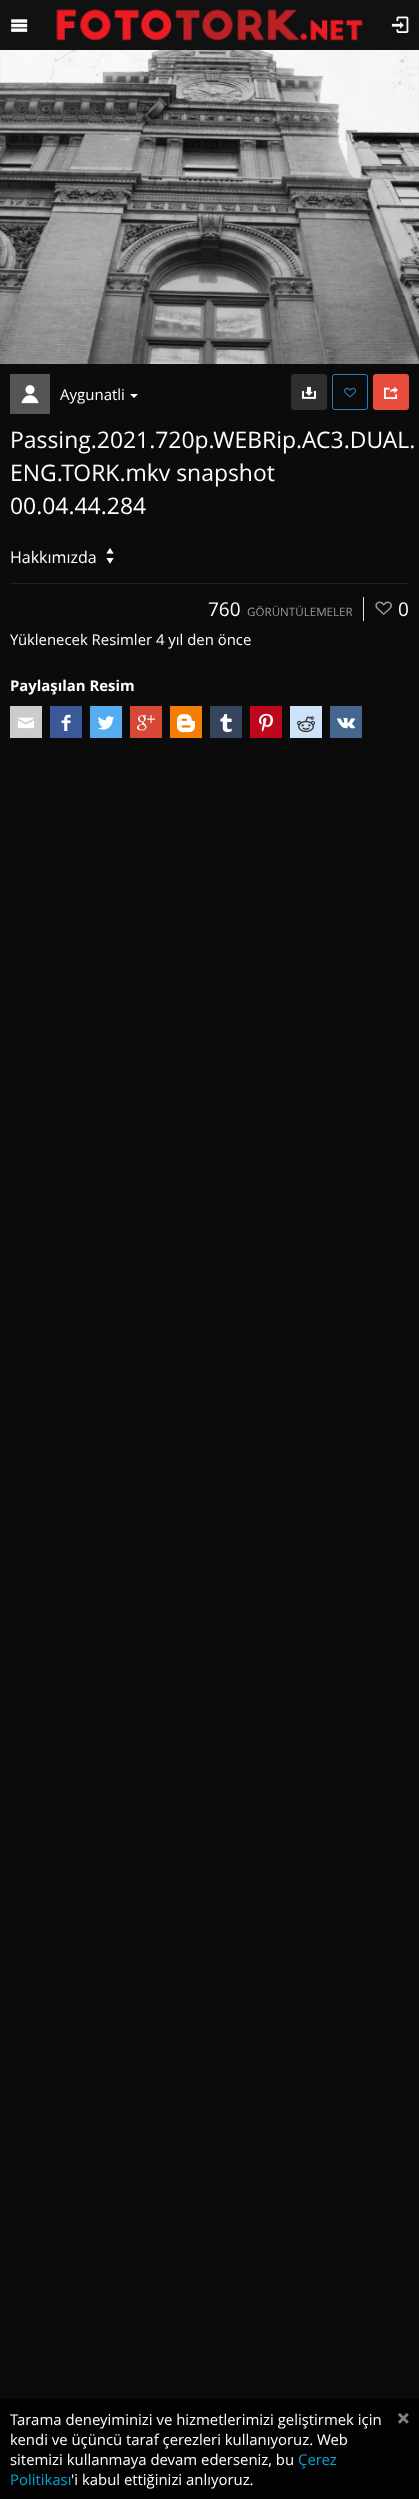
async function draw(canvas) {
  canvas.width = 419;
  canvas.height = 2499;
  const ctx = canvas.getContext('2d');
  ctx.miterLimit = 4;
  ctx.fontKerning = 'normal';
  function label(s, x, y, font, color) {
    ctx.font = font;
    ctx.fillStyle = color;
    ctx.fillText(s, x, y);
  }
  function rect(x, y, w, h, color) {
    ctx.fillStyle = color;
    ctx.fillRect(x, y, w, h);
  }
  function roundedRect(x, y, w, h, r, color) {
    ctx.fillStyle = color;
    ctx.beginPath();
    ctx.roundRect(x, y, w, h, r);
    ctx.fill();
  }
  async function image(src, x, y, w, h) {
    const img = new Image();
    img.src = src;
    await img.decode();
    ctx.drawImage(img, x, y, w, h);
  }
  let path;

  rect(0, 0, 419, 2499, '#0b0b0b');
  rect(0, 0, 419, 50, '#111');
  await image('assets/img1.png', 11, 19, 17, 13);
  await image('assets/img2.png', 56, 9, 307, 32);
  await image('assets/img3.png', 391, 16, 18, 17);
  await image('assets/img4.png', 0, 50, 419, 314);
  rect(10, 374, 40, 40, '#555');
  await image('assets/img5.png', 21, 385, 18, 19);
  label('Aygunatli', 60, 400, '15px Open Sans', '#fff');
  path = new Path2D('M130 394H138L134 398Z');
  ctx.fill(path);
  roundedRect(291, 374, 36, 36, 3, '#2f2f2f');
  await image('assets/img6.png', 302, 386, 14, 13);
  ctx.beginPath();
  ctx.roundRect(332.5, 374.5, 35, 35, 2.5);
  ctx.strokeStyle = '#2a80b9';
  ctx.stroke();
  await image('assets/img7.png', 344, 387, 12, 11);
  roundedRect(373, 374, 36, 36, 3, '#e84c3d');
  await image('assets/img8.png', 384, 386, 14, 13);
  label('Passing.2021.720p.WEBRip.AC3.DUAL.', 10, 448, '22.9px Open Sans', '#fff');
  label('ENG.TORK.mkv snapshot', 10, 481, '22.9px Open Sans', '#fff');
  label('00.04.44.284', 10, 514, '22.9px Open Sans', '#fff');
  rect(10, 583, 399, 1, '#212121');
  label('Hakkımızda', 10, 563, '16px Open Sans', '#fff');
  await image('assets/img9.png', 106, 548, 8, 16);
  label('760', 208, 616, '19px Open Sans', '#fff');
  label('GÖRÜNTÜLEMELER', 247, 616, '11.6px Open Sans', '#999');
  rect(363, 597, 1, 24, '#e5e5e5');
  await image('assets/img10.png', 375, 601, 17, 14);
  label('0', 398, 616, '19px Open Sans', '#fff');
  label('Yüklenecek Resimler 4 yıl den önce', 10, 645, '14.9px Open Sans', '#fff');
  label('Paylaşılan Resim', 10, 691, 'bold 14.9px Open Sans', '#fff');
  rect(10, 706, 32, 32, '#ccc');
  await image('assets/img11.png', 17, 717, 18, 12);
  rect(50, 706, 32, 32, '#3b5998');
  await image('assets/img12.png', 61, 714, 10, 17);
  rect(90, 706, 32, 32, '#55acee');
  await image('assets/img13.png', 98, 716, 17, 14);
  rect(130, 706, 32, 32, '#d74836');
  await image('assets/img14.png', 137, 715, 18, 16);
  rect(170, 706, 32, 32, '#f57d00');
  await image('assets/img15.png', 177, 714, 18, 19);
  rect(210, 706, 32, 32, '#35465c');
  await image('assets/img16.png', 220, 714, 12, 19);
  rect(250, 706, 32, 32, '#bd081c');
  await image('assets/img17.png', 259, 713, 14, 19);
  rect(290, 706, 32, 32, '#cee3f8');
  await image('assets/img18.png', 297, 716, 18, 17);
  rect(330, 706, 32, 32, '#45668e');
  await image('assets/img19.png', 337, 718, 18, 11);
  rect(0, 2399, 419, 100, '#020202');
  label('Tarama deneyiminizi ve hizmetlerimizi geliştirmek için', 10, 2425, '14.9px Open Sans', '#fff');
  label('kendi ve üçüncü taraf çerezleri kullanıyoruz. Web', 10, 2445, '14.9px Open Sans', '#fff');
  label('sitemizi kullanmaya devam ederseniz, bu', 10, 2465, '14.9px Open Sans', '#fff');
  label('Çerez', 298, 2465, '14.9px Open Sans', '#00a7da');
  label('Politikası', 10, 2485, '14.9px Open Sans', '#00a7da');
  label('\'i kabul ettiğinizi anlıyoruz.', 71, 2485, '14.9px Open Sans', '#fff');
  await image('assets/img20.png', 398, 2413, 11, 11);
}

draw(document.querySelector('canvas'));
